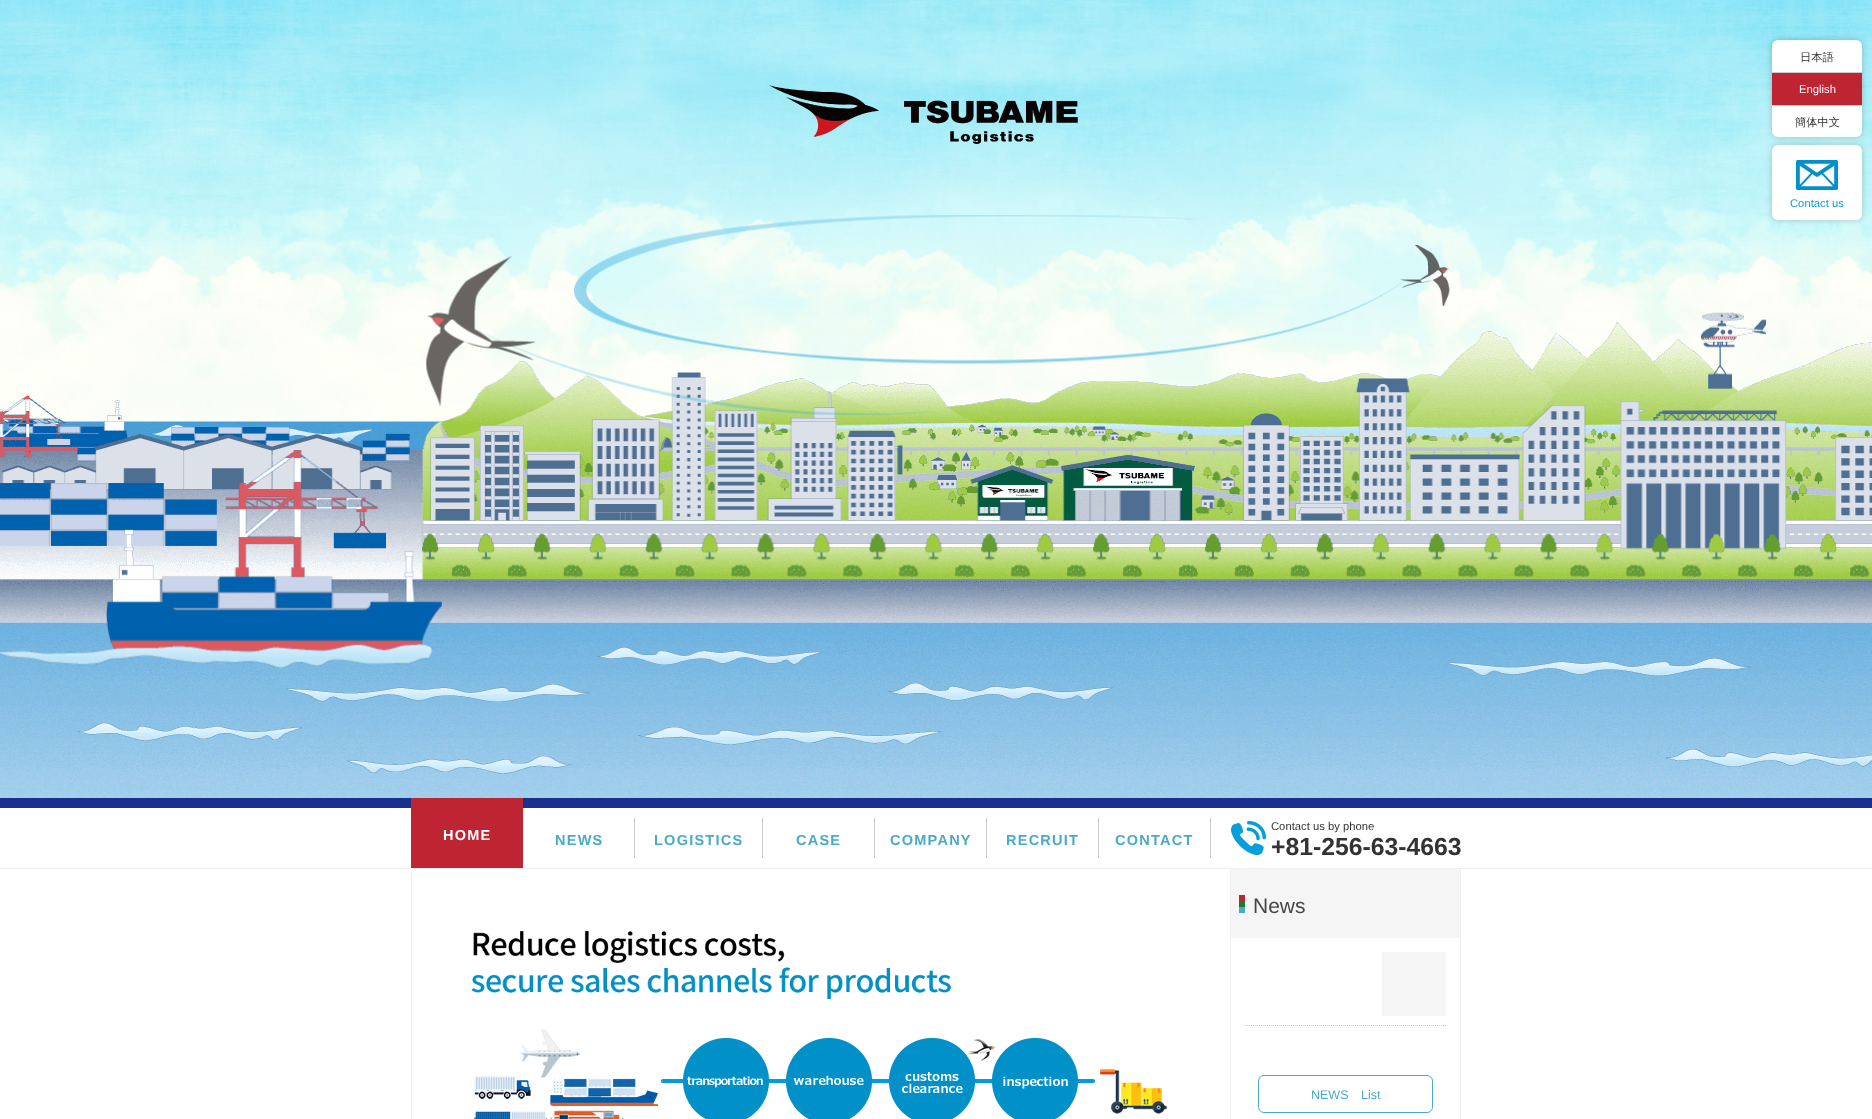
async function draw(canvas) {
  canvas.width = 1872;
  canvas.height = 1119;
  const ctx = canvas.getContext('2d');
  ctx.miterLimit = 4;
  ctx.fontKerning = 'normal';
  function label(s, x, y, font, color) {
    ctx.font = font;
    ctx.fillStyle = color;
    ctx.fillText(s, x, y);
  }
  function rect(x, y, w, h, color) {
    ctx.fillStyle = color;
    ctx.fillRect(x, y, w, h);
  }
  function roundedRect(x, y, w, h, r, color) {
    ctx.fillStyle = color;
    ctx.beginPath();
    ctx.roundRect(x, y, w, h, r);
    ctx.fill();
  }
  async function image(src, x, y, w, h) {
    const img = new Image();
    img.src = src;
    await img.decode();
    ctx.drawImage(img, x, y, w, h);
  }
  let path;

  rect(0, 0, 1872, 1119, '#fff');
  rect(0, 798, 1872, 10, '#18318d');
  await image('assets/img1.png', 0, 0, 1872, 422);
  await image('assets/img6.png', 0, 322, 1872, 476);
  await image('assets/img9.png', 473, 438, 193, 12);
  await image('assets/img7.png', 430, 372, 1442, 149);
  await image('assets/img8.png', 422, 401, 1448, 176);
  await image('assets/img2.png', 468, 215, 937, 200);
  await image('assets/img3.png', 426, 256, 109, 151);
  await image('assets/img4.png', 1400, 244, 50, 62);
  await image('assets/img5.png', 1700, 312, 66, 77);
  await image('assets/img12.png', 0, 483, 217, 63);
  await image('assets/img10.png', 0, 450, 442, 218);
  await image('assets/img11.png', 333, 519, 53, 30);
  rect(411, 798, 112, 70, '#be2432');
  ctx.letterSpacing = '1.25px';
  label('HOME', 443, 840, 'bold 14.5px Liberation Sans', '#fff');
  label('NEWS', 555, 845, 'bold 14.5px Liberation Sans', '#4caac6');
  rect(634, 818, 1, 40, '#ccc');
  label('LOGISTICS', 654, 845, 'bold 14.5px Liberation Sans', '#4caac6');
  rect(762, 818, 1, 40, '#ccc');
  label('CASE', 796, 845, 'bold 14.5px Liberation Sans', '#4caac6');
  rect(874, 818, 1, 40, '#ccc');
  label('COMPANY', 890, 845, 'bold 14.5px Liberation Sans', '#4caac6');
  rect(986, 818, 1, 40, '#ccc');
  label('RECRUIT', 1006, 845, 'bold 14.5px Liberation Sans', '#4caac6');
  rect(1098, 818, 1, 40, '#ccc');
  label('CONTACT', 1115, 845, 'bold 14.5px Liberation Sans', '#4caac6');
  rect(1210, 818, 1, 40, '#ccc');
  await image('assets/img13.png', 769, 85, 309, 59);
  ctx.fillStyle = '#00000033';
  ctx.filter = 'blur(3px)';
  ctx.beginPath();
  ctx.roundRect(1772, 145, 90, 75, 6);
  ctx.fill();
  ctx.filter = 'none';
  roundedRect(1772, 145, 90, 75, 6, '#fff');
  ctx.fillStyle = '#00000033';
  ctx.filter = 'blur(3px)';
  ctx.beginPath();
  ctx.roundRect(1772, 40, 90, 97, 6);
  ctx.fill();
  ctx.filter = 'none';
  roundedRect(1772, 40, 90, 97, 6, '#fff');
  ctx.letterSpacing = '0px';
  label('日本語', 1800, 61, '500 11.25px WenQuanYi Zen Hei', '#333');
  rect(1772, 72, 90, 1, '#ccc');
  rect(1772, 73, 90, 32, '#be2432');
  label('English', 1799, 93, '11.25px Liberation Sans', '#fff');
  rect(1772, 105, 90, 1, '#ccc');
  label('簡体中文', 1795, 126, '500 11.25px WenQuanYi Zen Hei', '#333');
  await image('assets/img14.png', 1796, 160, 42, 30);
  label('Contact us', 1790, 207, '11.25px Liberation Sans', '#079eda');
  await image('assets/img15.png', 1231, 821, 35, 34);
  label('Contact us by phone', 1271, 830, '11.25px Liberation Sans', '#333');
  label('+81-256-63-4663', 1271, 855, 'bold 24.75px Liberation Sans', '#333');
  rect(0, 868, 1872, 1, '#f0f0f0');
  rect(1460, 869, 1, 250, '#f0f0f0');
  rect(411, 869, 1, 250, '#f0f0f0');
  await image('assets/img16.png', 471, 931, 480, 68);
  await image('assets/img17.png', 474, 1029, 694, 90);
  rect(1230, 869, 1, 250, '#f0f0f0');
  rect(1231, 869, 229, 69, '#f5f5f5');
  rect(1239, 895, 6, 18, '#137e3a');
  rect(1239, 895, 6, 6, '#be2432');
  rect(1239, 907, 6, 6, '#4caac6');
  label('News', 1253, 913, '21px Liberation Sans', '#464646');
  path = new Path2D('M1245 1025.5H1446');
  ctx.strokeStyle = '#ccc';
  ctx.setLineDash([1, 1]);
  ctx.stroke(path);
  rect(1382, 952, 64, 64, '#f5f5f5');
  ctx.beginPath();
  ctx.roundRect(1258.5, 1075.5, 174, 37, 5.5);
  ctx.strokeStyle = '#4caac6';
  ctx.setLineDash([]);
  ctx.stroke();
  label('NEWS', 1311, 1099, '12.5px Liberation Sans', '#4caac6');
  label('List', 1361, 1099, '12.5px Liberation Sans', '#4caac6');
}

draw(document.querySelector('canvas'));
